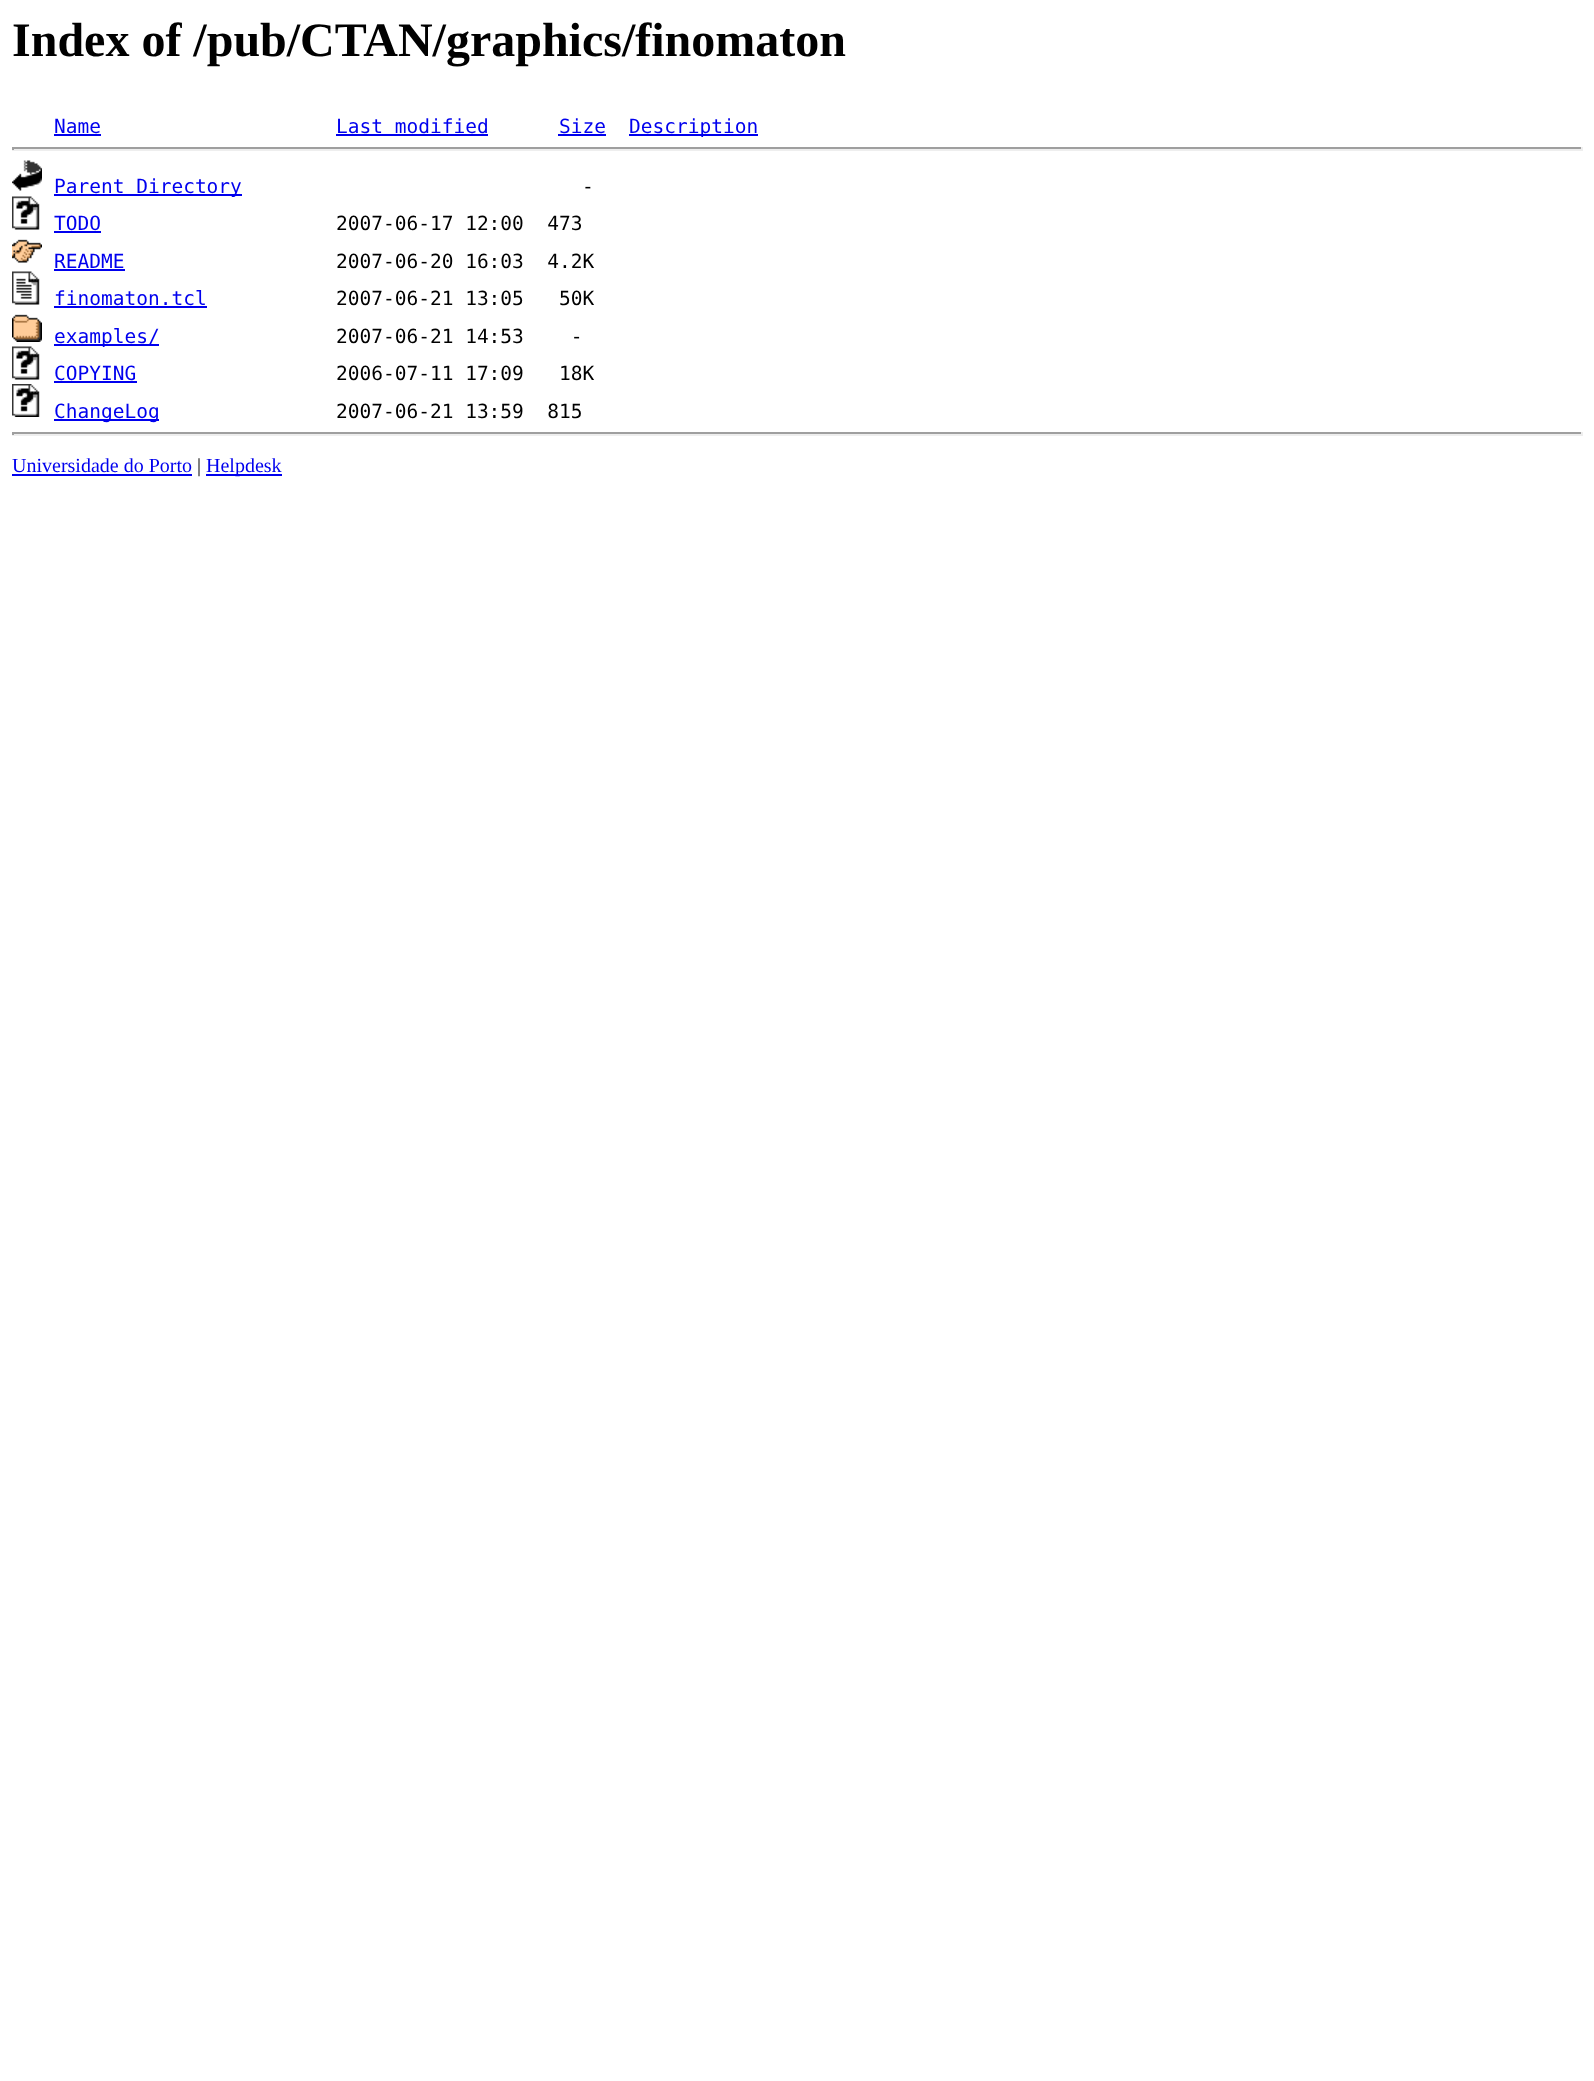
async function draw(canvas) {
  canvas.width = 1594;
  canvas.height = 2081;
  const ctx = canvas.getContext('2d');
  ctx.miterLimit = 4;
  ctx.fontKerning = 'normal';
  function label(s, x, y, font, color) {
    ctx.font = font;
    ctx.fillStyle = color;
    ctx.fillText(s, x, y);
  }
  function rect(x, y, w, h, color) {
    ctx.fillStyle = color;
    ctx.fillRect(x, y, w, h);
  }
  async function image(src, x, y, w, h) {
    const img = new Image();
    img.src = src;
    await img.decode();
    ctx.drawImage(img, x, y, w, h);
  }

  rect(0, 0, 1594, 2081, '#fff');
  label('Index of /pub/CTAN/graphics/finomaton', 12, 56, 'bold 48px Liberation Serif', '#000');
  label('Name', 54, 133, '19.5px DejaVu Sans Mono', '#00e');
  rect(54, 134, 47, 2, '#00e');
  label('Last modified', 336, 133, '19.5px DejaVu Sans Mono', '#00e');
  rect(336, 134, 152, 2, '#00e');
  label('Size', 559, 133, '19.5px DejaVu Sans Mono', '#00e');
  rect(558, 134, 48, 2, '#00e');
  rect(629, 134, 129, 2, '#00e');
  label('Description', 629, 133, '19.5px DejaVu Sans Mono', '#00e');
  rect(12, 147, 1571, 2, '#9f9f9f');
  rect(1581, 147, 2, 3, '#eee');
  rect(12, 149, 1571, 2, '#eee');
  rect(12, 147, 2, 3, '#9f9f9f');
  await image('assets/img1.png', 12, 160, 30, 31);
  rect(54, 194, 188, 2, '#00e');
  label('Parent Directory', 54, 193, '19.5px DejaVu Sans Mono', '#00e');
  label('-', 582, 193, '19.5px DejaVu Sans Mono', '#000');
  await image('assets/img2.png', 12, 196, 28, 34);
  label('TODO', 54, 230, '19.5px DejaVu Sans Mono', '#00e');
  rect(54, 231, 47, 2, '#00e');
  label('2007-06-17 12:00  473', 336, 230, '19.5px DejaVu Sans Mono', '#000');
  await image('assets/img3.png', 12, 239, 30, 24);
  label('README', 54, 268, '19.5px DejaVu Sans Mono', '#00e');
  rect(54, 269, 71, 2, '#00e');
  label('2007-06-20 16:03  4.2K', 336, 268, '19.5px DejaVu Sans Mono', '#000');
  await image('assets/img4.png', 12, 271, 28, 34);
  label('finomaton.tcl', 54, 305, '19.5px DejaVu Sans Mono', '#00e');
  rect(54, 306, 153, 2, '#00e');
  label('2007-06-21 13:05   50K', 336, 305, '19.5px DejaVu Sans Mono', '#000');
  await image('assets/img5.png', 12, 314, 30, 28);
  rect(54, 344, 105, 2, '#00e');
  label('examples/', 54, 343, '19.5px DejaVu Sans Mono', '#00e');
  label('2007-06-21 14:53    -', 336, 343, '19.5px DejaVu Sans Mono', '#000');
  await image('assets/img2.png', 12, 346, 28, 34);
  label('COPYING', 54, 380, '19.5px DejaVu Sans Mono', '#00e');
  rect(54, 381, 83, 2, '#00e');
  label('2006-07-11 17:09   18K', 336, 380, '19.5px DejaVu Sans Mono', '#000');
  await image('assets/img6.png', 12, 384, 28, 33);
  rect(54, 419, 105, 2, '#00e');
  label('ChangeLog', 54, 418, '19.5px DejaVu Sans Mono', '#00e');
  label('2007-06-21 13:59  815', 336, 418, '19.5px DejaVu Sans Mono', '#000');
  rect(12, 432, 1571, 2, '#9f9f9f');
  rect(1581, 432, 2, 3, '#eee');
  rect(12, 434, 1571, 2, '#eee');
  rect(12, 432, 2, 3, '#9f9f9f');
  label('Universidade do Porto', 12, 472, '20px Liberation Serif', '#00e');
  rect(12, 474, 180, 2, '#00e');
  label('|', 197, 472, '20px Liberation Serif', '#000');
  rect(206, 474, 76, 2, '#00e');
  label('Helpdesk', 206, 472, '20px Liberation Serif', '#00e');
}

draw(document.querySelector('canvas'));
